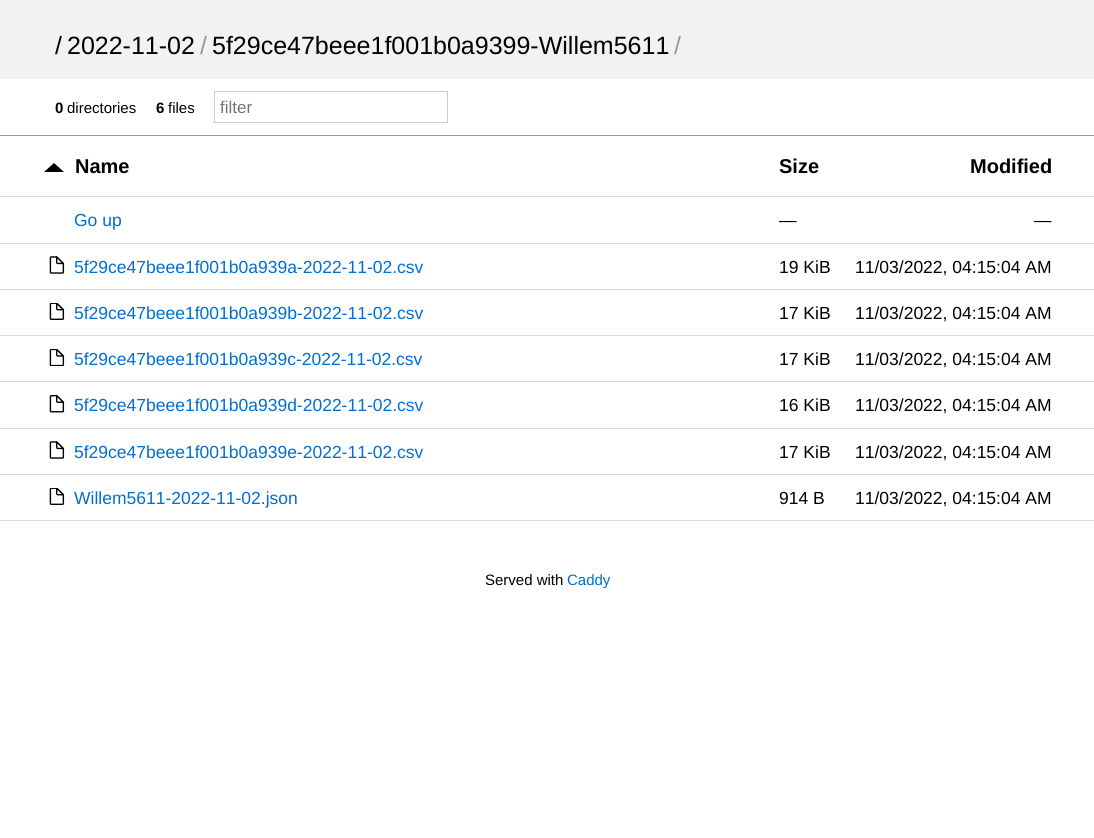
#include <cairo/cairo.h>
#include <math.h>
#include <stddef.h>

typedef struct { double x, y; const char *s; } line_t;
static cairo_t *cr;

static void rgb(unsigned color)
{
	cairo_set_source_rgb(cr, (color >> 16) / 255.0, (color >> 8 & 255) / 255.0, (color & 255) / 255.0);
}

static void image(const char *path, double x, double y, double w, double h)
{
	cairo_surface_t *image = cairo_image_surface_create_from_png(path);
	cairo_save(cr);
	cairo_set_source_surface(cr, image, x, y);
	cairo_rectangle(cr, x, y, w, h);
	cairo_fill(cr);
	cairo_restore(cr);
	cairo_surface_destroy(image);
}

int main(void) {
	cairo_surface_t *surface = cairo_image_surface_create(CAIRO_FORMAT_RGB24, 1094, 838);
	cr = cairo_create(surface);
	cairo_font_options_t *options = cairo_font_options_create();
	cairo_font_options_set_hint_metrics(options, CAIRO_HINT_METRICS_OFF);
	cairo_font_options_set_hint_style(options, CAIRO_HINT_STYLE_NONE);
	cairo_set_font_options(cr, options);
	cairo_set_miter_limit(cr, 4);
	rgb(0xffffff);
	cairo_paint(cr);
	rgb(0xf2f2f2);
	cairo_rectangle(cr, 0, 0, 1094, 79);
	cairo_fill(cr);
	rgb(0x9c9c9c);
	cairo_rectangle(cr, 0, 135, 1094, 1);
	cairo_fill(cr);
	cairo_rectangle(cr, 214.5, 91.5, 233, 31);
	rgb(0xcccccc);
	cairo_set_line_width(cr, 1);
	cairo_stroke(cr);
	rgb(0xdadada);
	cairo_rectangle(cr, 0, 196, 1094, 1);
	cairo_fill(cr);
	rgb(0x000000);
	cairo_new_path(cr);
	cairo_move_to(cr, 64, 172);
	cairo_line_to(cr, 44, 172);
	cairo_line_to(cr, 54, 163);
	cairo_line_to(cr, 59, 167.5);
	cairo_close_path(cr);
	cairo_fill(cr);
	rgb(0xdadada);
	cairo_rectangle(cr, 0, 243, 1094, 1);
	cairo_fill(cr);
	cairo_rectangle(cr, 0, 289, 1094, 1);
	cairo_fill(cr);
	image("img/1.png", 49, 256, 16, 18);
	cairo_rectangle(cr, 0, 335, 1094, 1);
	cairo_fill(cr);
	image("img/2.png", 49, 303, 16, 17);
	cairo_rectangle(cr, 0, 381, 1094, 1);
	cairo_fill(cr);
	image("img/3.png", 49, 349, 16, 17);
	cairo_rectangle(cr, 0, 428, 1094, 1);
	cairo_fill(cr);
	image("img/4.png", 49, 395, 16, 18);
	cairo_rectangle(cr, 0, 474, 1094, 1);
	cairo_fill(cr);
	image("img/1.png", 49, 441, 16, 18);
	cairo_rectangle(cr, 0, 520, 1094, 1);
	cairo_fill(cr);
	image("img/2.png", 49, 488, 16, 17);
	cairo_select_font_face(cr, "Liberation Sans", CAIRO_FONT_SLANT_NORMAL, CAIRO_FONT_WEIGHT_NORMAL);
	cairo_set_font_size(cr, 25);
	rgb(0x000000);
	cairo_move_to(cr, 55, 54);
	cairo_show_text(cr, "/");
	cairo_move_to(cr, 67, 54);
	cairo_show_text(cr, "2022-11-02");
	rgb(0x999999);
	cairo_move_to(cr, 200, 54);
	cairo_show_text(cr, "/");
	rgb(0x000000);
	cairo_move_to(cr, 212, 54);
	cairo_show_text(cr, "5f29ce47beee1f001b0a9399-Willem5611");
	rgb(0x999999);
	cairo_move_to(cr, 674, 54);
	cairo_show_text(cr, "/");
	cairo_select_font_face(cr, "Liberation Sans", CAIRO_FONT_SLANT_NORMAL, CAIRO_FONT_WEIGHT_BOLD);
	cairo_set_font_size(cr, 15);
	rgb(0x000000);
	cairo_move_to(cr, 55, 113);
	cairo_show_text(cr, "0");
	cairo_select_font_face(cr, "Liberation Sans", CAIRO_FONT_SLANT_NORMAL, CAIRO_FONT_WEIGHT_NORMAL);
	cairo_move_to(cr, 67, 113);
	cairo_show_text(cr, "directories");
	cairo_select_font_face(cr, "Liberation Sans", CAIRO_FONT_SLANT_NORMAL, CAIRO_FONT_WEIGHT_BOLD);
	cairo_move_to(cr, 156, 113);
	cairo_show_text(cr, "6");
	cairo_select_font_face(cr, "Liberation Sans", CAIRO_FONT_SLANT_NORMAL, CAIRO_FONT_WEIGHT_NORMAL);
	cairo_move_to(cr, 168, 113);
	cairo_show_text(cr, "files");
	cairo_set_font_size(cr, 17);
	rgb(0x757575);
	cairo_move_to(cr, 220, 113);
	cairo_show_text(cr, "filter");
	cairo_select_font_face(cr, "Liberation Sans", CAIRO_FONT_SLANT_NORMAL, CAIRO_FONT_WEIGHT_BOLD);
	cairo_set_font_size(cr, 20);
	rgb(0x000000);
	{
		static const line_t items[] = {
			{75, 173, "Name"},
			{779, 173, "Size"},
			{970, 173, "Modified"},
		};
		for (size_t i = 0; i < sizeof items / sizeof *items; i++) {
			cairo_move_to(cr, items[i].x, items[i].y);
			cairo_show_text(cr, items[i].s);
		}
	}
	cairo_select_font_face(cr, "Liberation Sans", CAIRO_FONT_SLANT_NORMAL, CAIRO_FONT_WEIGHT_NORMAL);
	cairo_set_font_size(cr, 17.5);
	rgb(0x006ed3);
	cairo_move_to(cr, 74, 226);
	cairo_show_text(cr, "Go up");
	rgb(0x000000);
	cairo_move_to(cr, 779, 226);
	cairo_show_text(cr, "—");
	cairo_move_to(cr, 1034, 226);
	cairo_show_text(cr, "—");
	rgb(0x006ed3);
	cairo_move_to(cr, 74, 273);
	cairo_show_text(cr, "5f29ce47beee1f001b0a939a-2022-11-02.csv");
	rgb(0x000000);
	cairo_move_to(cr, 779, 273);
	cairo_show_text(cr, "19 KiB");
	cairo_move_to(cr, 855, 273);
	cairo_show_text(cr, "11/03/2022, 04:15:04 AM");
	rgb(0x006ed3);
	cairo_move_to(cr, 74, 319);
	cairo_show_text(cr, "5f29ce47beee1f001b0a939b-2022-11-02.csv");
	rgb(0x000000);
	cairo_move_to(cr, 779, 319);
	cairo_show_text(cr, "17 KiB");
	cairo_move_to(cr, 855, 319);
	cairo_show_text(cr, "11/03/2022, 04:15:04 AM");
	rgb(0x006ed3);
	cairo_move_to(cr, 74, 365);
	cairo_show_text(cr, "5f29ce47beee1f001b0a939c-2022-11-02.csv");
	rgb(0x000000);
	cairo_move_to(cr, 779, 365);
	cairo_show_text(cr, "17 KiB");
	cairo_move_to(cr, 855, 365);
	cairo_show_text(cr, "11/03/2022, 04:15:04 AM");
	rgb(0x006ed3);
	cairo_move_to(cr, 74, 411);
	cairo_show_text(cr, "5f29ce47beee1f001b0a939d-2022-11-02.csv");
	rgb(0x000000);
	cairo_move_to(cr, 779, 411);
	cairo_show_text(cr, "16 KiB");
	cairo_move_to(cr, 855, 411);
	cairo_show_text(cr, "11/03/2022, 04:15:04 AM");
	rgb(0x006ed3);
	cairo_move_to(cr, 74, 458);
	cairo_show_text(cr, "5f29ce47beee1f001b0a939e-2022-11-02.csv");
	rgb(0x000000);
	cairo_move_to(cr, 779, 458);
	cairo_show_text(cr, "17 KiB");
	cairo_move_to(cr, 855, 458);
	cairo_show_text(cr, "11/03/2022, 04:15:04 AM");
	rgb(0x006ed3);
	cairo_move_to(cr, 74, 504);
	cairo_show_text(cr, "Willem5611-2022-11-02.json");
	rgb(0x000000);
	cairo_move_to(cr, 779, 504);
	cairo_show_text(cr, "914 B");
	cairo_move_to(cr, 855, 504);
	cairo_show_text(cr, "11/03/2022, 04:15:04 AM");
	cairo_set_font_size(cr, 15);
	cairo_move_to(cr, 485, 585);
	cairo_show_text(cr, "Served with");
	rgb(0x006ed3);
	cairo_move_to(cr, 567, 585);
	cairo_show_text(cr, "Caddy");
	cairo_surface_write_to_png(surface, "page.png");
	cairo_font_options_destroy(options);
	cairo_destroy(cr);
	cairo_surface_destroy(surface);
	return 0;
}
